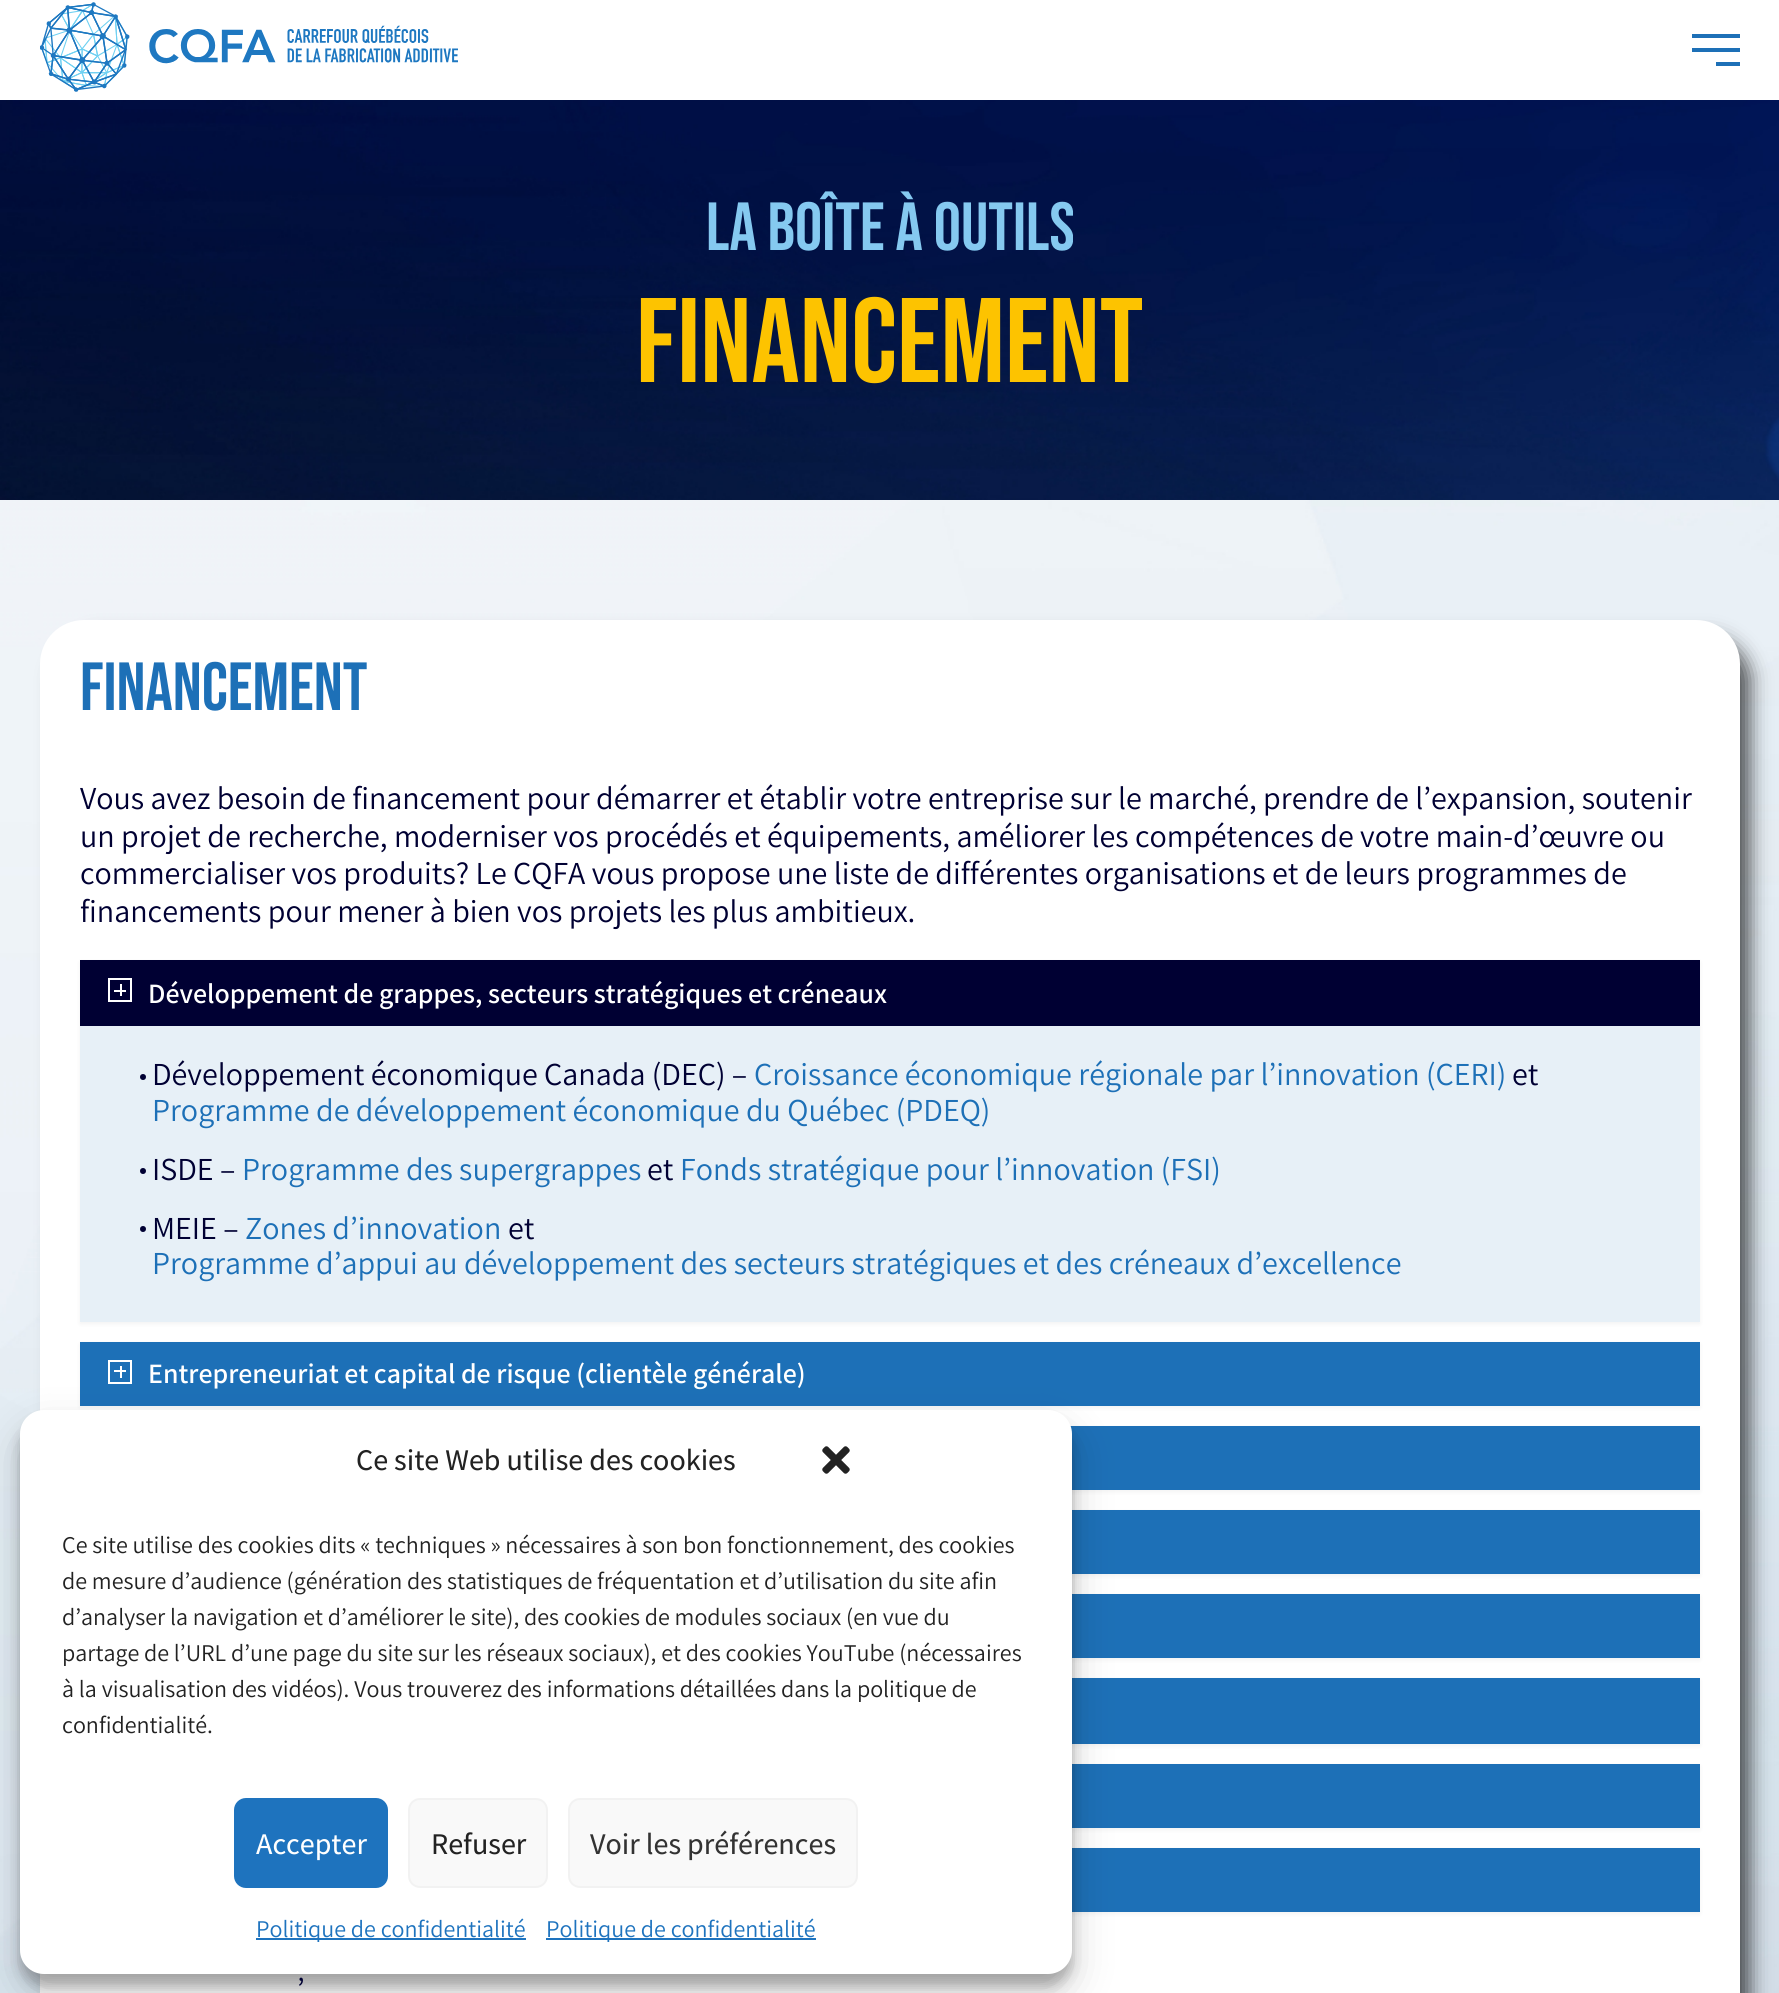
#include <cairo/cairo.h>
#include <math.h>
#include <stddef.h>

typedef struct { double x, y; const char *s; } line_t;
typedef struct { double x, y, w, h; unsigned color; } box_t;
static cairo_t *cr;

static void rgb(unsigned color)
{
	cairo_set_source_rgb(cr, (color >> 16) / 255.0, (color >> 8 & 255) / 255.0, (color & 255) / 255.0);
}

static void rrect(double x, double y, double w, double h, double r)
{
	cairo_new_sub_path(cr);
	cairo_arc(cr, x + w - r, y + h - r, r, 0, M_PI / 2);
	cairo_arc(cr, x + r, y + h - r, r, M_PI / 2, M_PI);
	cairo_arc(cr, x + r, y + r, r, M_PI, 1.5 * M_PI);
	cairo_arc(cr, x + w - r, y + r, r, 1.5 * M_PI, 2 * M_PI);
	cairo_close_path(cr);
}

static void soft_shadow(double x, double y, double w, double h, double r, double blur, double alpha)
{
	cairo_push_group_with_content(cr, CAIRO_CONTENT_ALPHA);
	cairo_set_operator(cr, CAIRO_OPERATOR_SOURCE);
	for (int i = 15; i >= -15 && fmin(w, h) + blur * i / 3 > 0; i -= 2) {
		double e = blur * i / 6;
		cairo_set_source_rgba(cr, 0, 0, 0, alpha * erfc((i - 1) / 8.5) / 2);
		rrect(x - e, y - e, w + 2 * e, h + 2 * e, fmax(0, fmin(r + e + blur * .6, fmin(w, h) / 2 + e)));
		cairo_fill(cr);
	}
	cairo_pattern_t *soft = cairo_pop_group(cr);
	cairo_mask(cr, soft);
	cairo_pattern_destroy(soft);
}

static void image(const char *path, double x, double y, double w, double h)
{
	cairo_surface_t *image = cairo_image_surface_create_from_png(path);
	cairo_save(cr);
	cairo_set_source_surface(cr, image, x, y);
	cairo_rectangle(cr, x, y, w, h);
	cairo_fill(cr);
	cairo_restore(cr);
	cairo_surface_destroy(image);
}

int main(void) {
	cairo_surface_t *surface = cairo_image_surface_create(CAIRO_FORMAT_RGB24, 1779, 1993);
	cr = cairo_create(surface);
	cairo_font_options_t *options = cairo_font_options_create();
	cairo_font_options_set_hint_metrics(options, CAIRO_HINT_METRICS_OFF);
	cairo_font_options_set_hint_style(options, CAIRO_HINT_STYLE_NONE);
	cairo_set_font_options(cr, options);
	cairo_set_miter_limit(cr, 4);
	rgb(0xffffff);
	cairo_paint(cr);
	image("img/1.png", 40, 2, 418, 90);
	{
		static const box_t items[] = {
			{1692, 34, 48, 4, 0x1d70b7},
			{1692, 48, 48, 4, 0x1d70b7},
			{1716, 62, 24, 4, 0x1d70b7},
		};
		for (size_t i = 0; i < sizeof items / sizeof *items; i++) {
			rgb(items[i].color);
			cairo_rectangle(cr, items[i].x, items[i].y, items[i].w, items[i].h);
			cairo_fill(cr);
		}
	}
	image("img/2.png", 0, 100, 1779, 400);
	image("img/3.png", 0, 500, 1779, 1493);
	rgb(0x000000);
	soft_shadow(58, 638, 1692, 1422, 40, 10, 0.66);
	rgb(0xffffff);
	rrect(40, 620, 1700, 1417, 44);
	cairo_fill(cr);
	rgb(0x000000);
	soft_shadow(80, 962, 1620, 362, 0, 2, 0.05);
	rgb(0x000033);
	cairo_rectangle(cr, 80, 960, 1620, 66);
	cairo_fill(cr);
	cairo_rectangle(cr, 109, 979, 22, 22);
	rgb(0xffffff);
	cairo_stroke(cr);
	{
		static const box_t items[] = {
			{120, 984, 2, 12, 0xffffff},
			{114, 990, 12, 2, 0xffffff},
			{80, 1026, 1620, 296, 0xe7f0f7},
		};
		for (size_t i = 0; i < sizeof items / sizeof *items; i++) {
			rgb(items[i].color);
			cairo_rectangle(cr, items[i].x, items[i].y, items[i].w, items[i].h);
			cairo_fill(cr);
		}
	}
	rgb(0x000033);
	cairo_arc(cr, 143, 1077, 3, 0, 2 * M_PI);
	cairo_fill(cr);
	cairo_arc(cr, 143, 1171, 3, 0, 2 * M_PI);
	cairo_fill(cr);
	cairo_arc(cr, 143, 1229, 3, 0, 2 * M_PI);
	cairo_fill(cr);
	rgb(0x000000);
	soft_shadow(80, 1344, 1620, 64, 0, 2, 0.05);
	rgb(0x1d70b7);
	cairo_rectangle(cr, 80, 1342, 1620, 64);
	cairo_fill(cr);
	cairo_rectangle(cr, 109, 1361, 22, 22);
	rgb(0xffffff);
	cairo_stroke(cr);
	cairo_rectangle(cr, 120, 1366, 2, 12);
	cairo_fill(cr);
	cairo_rectangle(cr, 114, 1370, 12, 2);
	cairo_fill(cr);
	rgb(0x000000);
	soft_shadow(80, 1428, 1620, 64, 0, 2, 0.05);
	rgb(0x1d70b7);
	cairo_rectangle(cr, 1070, 1426, 630, 64);
	cairo_fill(cr);
	rgb(0x000000);
	soft_shadow(80, 1512, 1620, 64, 0, 2, 0.05);
	rgb(0x1d70b7);
	cairo_rectangle(cr, 1072, 1510, 628, 64);
	cairo_fill(cr);
	rgb(0x000000);
	soft_shadow(80, 1596, 1620, 64, 0, 2, 0.05);
	rgb(0x1d70b7);
	cairo_rectangle(cr, 1072, 1594, 628, 64);
	cairo_fill(cr);
	rgb(0x000000);
	soft_shadow(80, 1680, 1620, 66, 0, 2, 0.05);
	rgb(0x1d70b7);
	cairo_rectangle(cr, 1072, 1678, 628, 66);
	cairo_fill(cr);
	rgb(0x000000);
	soft_shadow(80, 1766, 1620, 64, 0, 2, 0.05);
	rgb(0x1d70b7);
	cairo_rectangle(cr, 1072, 1764, 628, 64);
	cairo_fill(cr);
	rgb(0x000000);
	soft_shadow(80, 1850, 1620, 64, 0, 2, 0.05);
	rgb(0x1d70b7);
	cairo_rectangle(cr, 1072, 1848, 628, 64);
	cairo_fill(cr);
	rgb(0x000000);
	soft_shadow(20, 1422, 1052, 564, 24, 6, 0.23);
	soft_shadow(20, 1430, 1052, 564, 24, 20, 0.19);
	rgb(0xffffff);
	rrect(20, 1410, 1052, 564, 24);
	cairo_fill(cr);
	image("img/4.png", 822, 1446, 28, 28);
	rgb(0x1e73be);
	rrect(235, 1799, 152, 88, 11);
	cairo_fill_preserve(cr);
	cairo_stroke(cr);
	rgb(0xf9f9f9);
	rrect(409, 1799, 138, 88, 11);
	cairo_fill_preserve(cr);
	rgb(0xf2f2f2);
	cairo_stroke(cr);
	rgb(0xf9f9f9);
	rrect(569, 1799, 288, 88, 11);
	cairo_fill_preserve(cr);
	rgb(0xf2f2f2);
	cairo_stroke(cr);
	rgb(0x1e73be);
	cairo_rectangle(cr, 256, 1938, 270, 2);
	cairo_fill(cr);
	cairo_rectangle(cr, 546, 1938, 270, 2);
	cairo_fill(cr);
	cairo_select_font_face(cr, "Bebas Neue", CAIRO_FONT_SLANT_NORMAL, CAIRO_FONT_WEIGHT_NORMAL);
	cairo_set_font_size(cr, 68);
	rgb(0x85c9f0);
	cairo_move_to(cr, 706, 250);
	cairo_show_text(cr, "LA BOÎTE À OUTILS");
	cairo_set_font_size(cr, 120);
	rgb(0xfdc300);
	cairo_move_to(cr, 636, 382);
	cairo_show_text(cr, "FINANCEMENT");
	cairo_set_font_size(cr, 68);
	rgb(0x1d70b7);
	cairo_move_to(cr, 80, 710);
	cairo_show_text(cr, "FINANCEMENT");
	cairo_select_font_face(cr, "Assistant", CAIRO_FONT_SLANT_NORMAL, CAIRO_FONT_WEIGHT_NORMAL);
	cairo_set_font_size(cr, 32);
	rgb(0x000033);
	{
		static const line_t items[] = {
			{80, 809, "Vous avez besoin de financement pour démarrer et établir votre entreprise sur le marché, prendre de l’expansion, soutenir"},
			{80, 847, "un projet de recherche, moderniser vos procédés et équipements, améliorer les compétences de votre main-d’œuvre ou"},
			{80, 884, "commercialiser vos produits? Le CQFA vous propose une liste de différentes organisations et de leurs programmes de"},
			{80, 922, "financements pour mener à bien vos projets les plus ambitieux."},
		};
		for (size_t i = 0; i < sizeof items / sizeof *items; i++) {
			cairo_move_to(cr, items[i].x, items[i].y);
			cairo_show_text(cr, items[i].s);
		}
	}
	cairo_select_font_face(cr, "Assistant SemiBold", CAIRO_FONT_SLANT_NORMAL, CAIRO_FONT_WEIGHT_NORMAL);
	cairo_set_font_size(cr, 28);
	rgb(0xffffff);
	cairo_move_to(cr, 148, 1003);
	cairo_show_text(cr, "Développement de grappes, secteurs stratégiques et créneaux");
	cairo_select_font_face(cr, "Assistant", CAIRO_FONT_SLANT_NORMAL, CAIRO_FONT_WEIGHT_NORMAL);
	cairo_set_font_size(cr, 32);
	rgb(0x000033);
	cairo_move_to(cr, 152, 1085);
	cairo_show_text(cr, "Développement économique Canada (DEC) –");
	rgb(0x1d70b7);
	cairo_move_to(cr, 754, 1085);
	cairo_show_text(cr, "Croissance économique régionale par l’innovation (CERI)");
	rgb(0x000033);
	cairo_move_to(cr, 1512, 1085);
	cairo_show_text(cr, "et");
	rgb(0x1d70b7);
	cairo_move_to(cr, 152, 1121);
	cairo_show_text(cr, "Programme de développement économique du Québec (PDEQ)");
	rgb(0x000033);
	cairo_move_to(cr, 152, 1180);
	cairo_show_text(cr, "ISDE –");
	rgb(0x1d70b7);
	cairo_move_to(cr, 242, 1180);
	cairo_show_text(cr, "Programme des supergrappes");
	rgb(0x000033);
	cairo_move_to(cr, 647, 1180);
	cairo_show_text(cr, "et");
	rgb(0x1d70b7);
	cairo_move_to(cr, 680, 1180);
	cairo_show_text(cr, "Fonds stratégique pour l’innovation (FSI)");
	rgb(0x000033);
	cairo_move_to(cr, 152, 1239);
	cairo_show_text(cr, "MEIE –");
	rgb(0x1d70b7);
	cairo_move_to(cr, 245, 1239);
	cairo_show_text(cr, "Zones d’innovation");
	rgb(0x000033);
	cairo_move_to(cr, 508, 1239);
	cairo_show_text(cr, "et");
	rgb(0x1d70b7);
	cairo_move_to(cr, 152, 1274);
	cairo_show_text(cr, "Programme d’appui au développement des secteurs stratégiques et des créneaux d’excellence");
	cairo_select_font_face(cr, "Assistant SemiBold", CAIRO_FONT_SLANT_NORMAL, CAIRO_FONT_WEIGHT_NORMAL);
	cairo_set_font_size(cr, 28);
	rgb(0xffffff);
	cairo_move_to(cr, 148, 1383);
	cairo_show_text(cr, "Entrepreneuriat et capital de risque (clientèle générale)");
	cairo_select_font_face(cr, "Assistant", CAIRO_FONT_SLANT_NORMAL, CAIRO_FONT_WEIGHT_NORMAL);
	cairo_set_font_size(cr, 32);
	rgb(0x000033);
	cairo_move_to(cr, 297, 2000);
	cairo_show_text(cr, "’");
	cairo_select_font_face(cr, "Assistant Medium", CAIRO_FONT_SLANT_NORMAL, CAIRO_FONT_WEIGHT_NORMAL);
	cairo_set_font_size(cr, 30);
	rgb(0x222222);
	cairo_move_to(cr, 356, 1470);
	cairo_show_text(cr, "Ce site Web utilise des cookies");
	cairo_select_font_face(cr, "Assistant", CAIRO_FONT_SLANT_NORMAL, CAIRO_FONT_WEIGHT_NORMAL);
	cairo_set_font_size(cr, 24);
	{
		static const line_t items[] = {
			{62, 1553, "Ce site utilise des cookies dits « techniques » nécessaires à son bon fonctionnement, des cookies"},
			{62, 1589, "de mesure d’audience (génération des statistiques de fréquentation et d’utilisation du site afin"},
			{62, 1625, "d’analyser la navigation et d’améliorer le site), des cookies de modules sociaux (en vue du"},
			{62, 1661, "partage de l’URL d’une page du site sur les réseaux sociaux), et des cookies YouTube (nécessaires"},
			{62, 1697, "à la visualisation des vidéos). Vous trouverez des informations détaillées dans la politique de"},
			{62, 1733, "confidentialité."},
		};
		for (size_t i = 0; i < sizeof items / sizeof *items; i++) {
			cairo_move_to(cr, items[i].x, items[i].y);
			cairo_show_text(cr, items[i].s);
		}
	}
	cairo_select_font_face(cr, "Assistant Medium", CAIRO_FONT_SLANT_NORMAL, CAIRO_FONT_WEIGHT_NORMAL);
	cairo_set_font_size(cr, 30);
	rgb(0xffffff);
	cairo_move_to(cr, 256, 1854);
	cairo_show_text(cr, "Accepter");
	rgb(0x222222);
	cairo_move_to(cr, 431, 1854);
	cairo_show_text(cr, "Refuser");
	rgb(0x333333);
	cairo_move_to(cr, 590, 1854);
	cairo_show_text(cr, "Voir les préférences");
	cairo_select_font_face(cr, "Assistant", CAIRO_FONT_SLANT_NORMAL, CAIRO_FONT_WEIGHT_NORMAL);
	cairo_set_font_size(cr, 24);
	rgb(0x1e73be);
	cairo_move_to(cr, 256, 1937);
	cairo_show_text(cr, "Politique de confidentialité");
	cairo_move_to(cr, 546, 1937);
	cairo_show_text(cr, "Politique de confidentialité");
	cairo_surface_write_to_png(surface, "page.png");
	cairo_font_options_destroy(options);
	cairo_destroy(cr);
	cairo_surface_destroy(surface);
	return 0;
}
